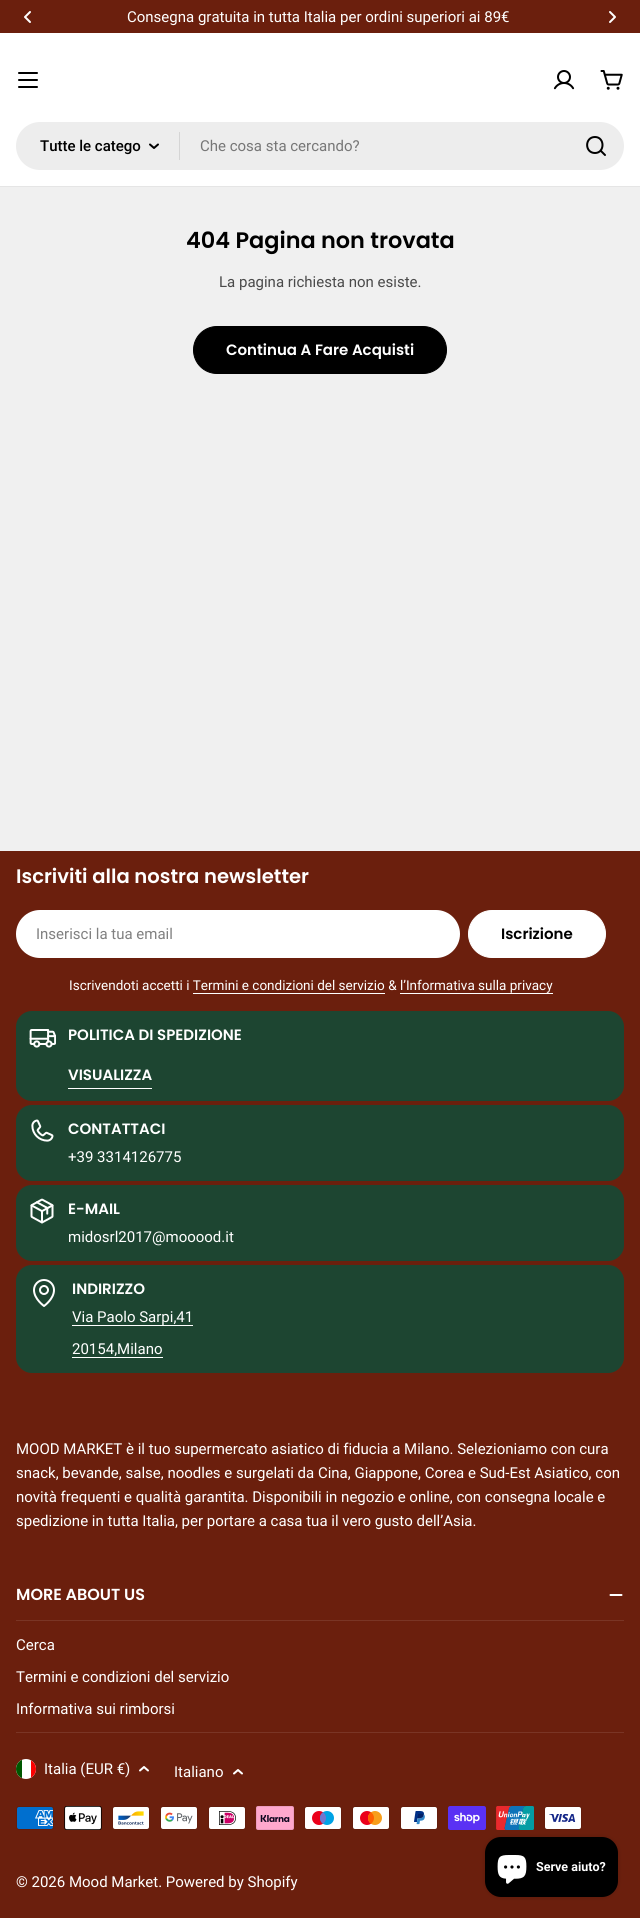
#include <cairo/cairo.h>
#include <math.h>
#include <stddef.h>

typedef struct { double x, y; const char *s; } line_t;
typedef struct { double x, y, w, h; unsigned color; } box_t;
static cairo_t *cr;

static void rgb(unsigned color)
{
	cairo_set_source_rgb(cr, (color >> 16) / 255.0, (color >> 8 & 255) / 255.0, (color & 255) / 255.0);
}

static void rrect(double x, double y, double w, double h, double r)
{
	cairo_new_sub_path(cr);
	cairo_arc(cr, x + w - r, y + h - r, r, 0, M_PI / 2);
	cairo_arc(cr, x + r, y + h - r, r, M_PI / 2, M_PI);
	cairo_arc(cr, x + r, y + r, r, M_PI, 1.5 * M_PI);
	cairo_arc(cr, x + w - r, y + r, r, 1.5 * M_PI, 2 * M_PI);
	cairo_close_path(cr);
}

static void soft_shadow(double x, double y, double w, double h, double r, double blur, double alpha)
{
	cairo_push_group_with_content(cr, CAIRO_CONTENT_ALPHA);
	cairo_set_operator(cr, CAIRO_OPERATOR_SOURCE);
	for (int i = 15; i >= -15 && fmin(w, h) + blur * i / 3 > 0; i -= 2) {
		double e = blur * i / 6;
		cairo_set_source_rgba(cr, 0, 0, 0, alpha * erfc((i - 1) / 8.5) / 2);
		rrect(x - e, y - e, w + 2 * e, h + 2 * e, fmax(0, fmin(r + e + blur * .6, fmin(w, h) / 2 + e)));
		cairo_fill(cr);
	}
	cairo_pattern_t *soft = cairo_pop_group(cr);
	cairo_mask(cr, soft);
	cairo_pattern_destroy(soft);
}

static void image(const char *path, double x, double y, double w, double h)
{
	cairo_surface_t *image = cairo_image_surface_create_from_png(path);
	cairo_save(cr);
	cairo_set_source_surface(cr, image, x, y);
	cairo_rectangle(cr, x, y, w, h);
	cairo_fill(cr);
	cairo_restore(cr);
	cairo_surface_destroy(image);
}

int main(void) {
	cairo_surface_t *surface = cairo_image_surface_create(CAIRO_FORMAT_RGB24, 640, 1918);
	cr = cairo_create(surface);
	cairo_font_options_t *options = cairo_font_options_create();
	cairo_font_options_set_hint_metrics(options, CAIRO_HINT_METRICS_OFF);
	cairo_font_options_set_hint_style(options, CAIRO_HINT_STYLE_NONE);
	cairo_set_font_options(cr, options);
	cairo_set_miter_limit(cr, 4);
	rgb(0xf0f0f0);
	cairo_paint(cr);
	rgb(0x6b1f0d);
	cairo_rectangle(cr, 0, 0, 640, 33);
	cairo_fill(cr);
	cairo_new_path(cr);
	cairo_move_to(cr, 30, 22);
	cairo_line_to(cr, 25, 17);
	cairo_line_to(cr, 30, 12);
	rgb(0xffffff);
	cairo_set_line_cap(cr, CAIRO_LINE_CAP_ROUND);
	cairo_set_line_join(cr, CAIRO_LINE_JOIN_ROUND);
	cairo_stroke(cr);
	cairo_new_path(cr);
	cairo_move_to(cr, 610, 12);
	cairo_line_to(cr, 615, 17);
	cairo_line_to(cr, 610, 22);
	cairo_stroke(cr);
	cairo_rectangle(cr, 0, 33, 640, 153);
	cairo_fill(cr);
	rgb(0x000000);
	rrect(18, 79, 20, 2, 1);
	cairo_fill(cr);
	rrect(18, 72, 20, 2, 1);
	cairo_fill(cr);
	rrect(18, 86, 20, 2, 1);
	cairo_fill(cr);
	image("img/1.png", 553, 70, 22, 20);
	image("img/2.png", 600, 70, 23, 20);
	rgb(0xededed);
	rrect(16, 122, 608, 48, 24);
	cairo_fill(cr);
	cairo_new_path(cr);
	cairo_move_to(cr, 158, 144.5);
	cairo_line_to(cr, 154, 148);
	cairo_line_to(cr, 150, 144.5);
	rgb(0x000000);
	cairo_stroke(cr);
	rgb(0xd5d5d5);
	cairo_rectangle(cr, 179, 132, 1, 28);
	cairo_fill(cr);
	cairo_new_path(cr);
	cairo_move_to(cr, 595, 153);
	cairo_curve_to(cr, 605, 153, 605, 137, 595, 137);
	cairo_curve_to(cr, 584.5, 137, 584.5, 153, 595, 153);
	cairo_close_path(cr);
	cairo_move_to(cr, 600.5, 150.5);
	cairo_line_to(cr, 605, 155);
	rgb(0x000000);
	cairo_stroke(cr);
	rgb(0xe5e5e5);
	cairo_rectangle(cr, 0, 186, 640, 1);
	cairo_fill(cr);
	rgb(0x000000);
	rrect(193.5, 326.5, 253, 47, 23.5);
	cairo_fill_preserve(cr);
	cairo_set_line_width(cr, 1);
	cairo_set_line_cap(cr, CAIRO_LINE_CAP_BUTT);
	cairo_set_line_join(cr, CAIRO_LINE_JOIN_MITER);
	cairo_stroke(cr);
	rgb(0x6b1f0d);
	cairo_rectangle(cr, 0, 851, 640, 1067);
	cairo_fill(cr);
	rgb(0xffffff);
	rrect(16, 910, 444, 48, 24);
	cairo_fill(cr);
	rrect(468.5, 910.5, 137, 47, 23.5);
	cairo_fill_preserve(cr);
	cairo_stroke(cr);
	cairo_rectangle(cr, 193, 993, 192, 1);
	cairo_fill(cr);
	cairo_rectangle(cr, 400, 993, 153, 1);
	cairo_fill(cr);
	rgb(0x1d4531);
	rrect(16, 1011, 608, 90, 16);
	cairo_fill(cr);
	image("img/3.png", 29, 1029, 27, 19);
	rgb(0xffffff);
	cairo_rectangle(cr, 68, 1088, 84, 1);
	cairo_fill(cr);
	rgb(0x1d4531);
	rrect(16, 1105, 608, 76, 16);
	cairo_fill(cr);
	image("img/4.png", 31, 1119, 23, 23);
	rrect(16, 1185, 608, 76, 16);
	cairo_fill(cr);
	image("img/5.png", 30, 1198, 24, 26);
	rrect(16, 1265, 608, 108, 16);
	cairo_fill(cr);
	image("img/6.png", 33, 1279, 22, 28);
	{
		static const box_t items[] = {
			{72, 1325, 121, 1, 0xffffff},
			{72, 1357, 91, 1, 0xffffff},
			{16, 1620, 608, 1, 0x7a3525},
		};
		for (size_t i = 0; i < sizeof items / sizeof *items; i++) {
			rgb(items[i].color);
			cairo_rectangle(cr, items[i].x, items[i].y, items[i].w, items[i].h);
			cairo_fill(cr);
		}
	}
	cairo_new_path(cr);
	cairo_move_to(cr, 610.5, 1595);
	cairo_line_to(cr, 621.5, 1595);
	cairo_move_to(cr, 610.5, 1595);
	cairo_line_to(cr, 621.5, 1595);
	rgb(0xffffff);
	cairo_set_line_width(cr, 2);
	cairo_set_line_cap(cr, CAIRO_LINE_CAP_ROUND);
	cairo_set_line_join(cr, CAIRO_LINE_JOIN_ROUND);
	cairo_stroke(cr);
	rgb(0x7a3525);
	cairo_rectangle(cr, 16, 1732, 608, 1);
	cairo_fill(cr);
	rgb(0xffffff);
	cairo_arc(cr, 26, 1769, 10, 0, 2 * M_PI);
	cairo_fill(cr);
	cairo_save(cr);
	rrect(16, 1759, 20, 20, 10);
	cairo_clip(cr);
	rgb(0x005700);
	cairo_rectangle(cr, 16, 1759, 6, 20);
	cairo_fill(cr);
	rgb(0xfc0000);
	cairo_rectangle(cr, 31, 1759, 5, 20);
	cairo_fill(cr);
	cairo_restore(cr);
	cairo_new_path(cr);
	cairo_move_to(cr, 140, 1770.5);
	cairo_line_to(cr, 144, 1767);
	cairo_line_to(cr, 148, 1770.5);
	cairo_stroke(cr);
	cairo_new_path(cr);
	cairo_move_to(cr, 234, 1773.5);
	cairo_line_to(cr, 238, 1770);
	cairo_line_to(cr, 242, 1773.5);
	cairo_stroke(cr);
	image("img/7.png", 16, 1806, 38, 24);
	image("img/8.png", 64, 1806, 38, 24);
	image("img/9.png", 112, 1806, 38, 24);
	image("img/10.png", 160, 1806, 38, 24);
	image("img/11.png", 208, 1806, 38, 24);
	image("img/12.png", 256, 1806, 38, 24);
	image("img/13.png", 304, 1806, 38, 24);
	image("img/14.png", 352, 1806, 38, 24);
	image("img/15.png", 400, 1806, 38, 24);
	image("img/16.png", 448, 1806, 38, 24);
	image("img/17.png", 496, 1806, 38, 24);
	image("img/18.png", 544, 1806, 38, 24);
	rgb(0x000000);
	soft_shadow(485, 1837, 133, 60, 16, 2.5, 0.15);
	rgb(0x000000);
	rrect(485, 1837, 133, 60, 16);
	cairo_fill(cr);
	image("img/19.png", 497, 1855, 30, 29);
	cairo_select_font_face(cr, "Roboto", CAIRO_FONT_SLANT_NORMAL, CAIRO_FONT_WEIGHT_NORMAL);
	cairo_set_font_size(cr, 15);
	rgb(0xffffff);
	cairo_move_to(cr, 127, 22);
	cairo_show_text(cr, "Consegna gratuita in tutta Italia per ordini superiori ai 89€");
	cairo_select_font_face(cr, "Roboto Medium", CAIRO_FONT_SLANT_NORMAL, CAIRO_FONT_WEIGHT_NORMAL);
	rgb(0x000000);
	cairo_move_to(cr, 40, 151);
	cairo_show_text(cr, "Tutte le catego");
	cairo_select_font_face(cr, "Roboto", CAIRO_FONT_SLANT_NORMAL, CAIRO_FONT_WEIGHT_NORMAL);
	rgb(0x777777);
	cairo_move_to(cr, 200, 151);
	cairo_show_text(cr, "Che cosa sta cercando?");
	cairo_select_font_face(cr, "Poppins SemiBold", CAIRO_FONT_SLANT_NORMAL, CAIRO_FONT_WEIGHT_NORMAL);
	cairo_set_font_size(cr, 22.4);
	rgb(0x000000);
	cairo_move_to(cr, 186, 248);
	cairo_show_text(cr, "404 Pagina non trovata");
	cairo_select_font_face(cr, "Roboto", CAIRO_FONT_SLANT_NORMAL, CAIRO_FONT_WEIGHT_NORMAL);
	cairo_set_font_size(cr, 15);
	rgb(0x4a4a4a);
	cairo_move_to(cr, 219, 287);
	cairo_show_text(cr, "La pagina richiesta non esiste.");
	cairo_select_font_face(cr, "Poppins SemiBold", CAIRO_FONT_SLANT_NORMAL, CAIRO_FONT_WEIGHT_NORMAL);
	rgb(0xffffff);
	cairo_move_to(cr, 226, 355);
	cairo_show_text(cr, "Continua A Fare Acquisti");
	cairo_set_font_size(cr, 19.6);
	cairo_move_to(cr, 16, 883);
	cairo_show_text(cr, "Iscriviti alla nostra newsletter");
	cairo_select_font_face(cr, "Roboto", CAIRO_FONT_SLANT_NORMAL, CAIRO_FONT_WEIGHT_NORMAL);
	cairo_set_font_size(cr, 15);
	rgb(0x808080);
	cairo_move_to(cr, 36, 939);
	cairo_show_text(cr, "Inserisci la tua email");
	cairo_select_font_face(cr, "Poppins SemiBold", CAIRO_FONT_SLANT_NORMAL, CAIRO_FONT_WEIGHT_NORMAL);
	rgb(0x000000);
	cairo_move_to(cr, 501, 939);
	cairo_show_text(cr, "Iscrizione");
	cairo_select_font_face(cr, "Roboto", CAIRO_FONT_SLANT_NORMAL, CAIRO_FONT_WEIGHT_NORMAL);
	cairo_set_font_size(cr, 13.5);
	rgb(0xffffff);
	cairo_move_to(cr, 69, 990);
	cairo_show_text(cr, "Iscrivendoti accetti i Termini e condizioni del servizio & l’Informativa sulla privacy");
	cairo_select_font_face(cr, "Poppins SemiBold", CAIRO_FONT_SLANT_NORMAL, CAIRO_FONT_WEIGHT_NORMAL);
	cairo_set_font_size(cr, 15);
	{
		static const line_t items[] = {
			{68, 1040, "POLITICA DI SPEDIZIONE"},
			{68, 1080, "VISUALIZZA"},
			{68, 1134, "CONTATTACI"},
		};
		for (size_t i = 0; i < sizeof items / sizeof *items; i++) {
			cairo_move_to(cr, items[i].x, items[i].y);
			cairo_show_text(cr, items[i].s);
		}
	}
	cairo_select_font_face(cr, "Roboto", CAIRO_FONT_SLANT_NORMAL, CAIRO_FONT_WEIGHT_NORMAL);
	cairo_move_to(cr, 68, 1162);
	cairo_show_text(cr, "+39 3314126775");
	cairo_select_font_face(cr, "Poppins SemiBold", CAIRO_FONT_SLANT_NORMAL, CAIRO_FONT_WEIGHT_NORMAL);
	cairo_move_to(cr, 68, 1214);
	cairo_show_text(cr, "E-MAIL");
	cairo_select_font_face(cr, "Roboto", CAIRO_FONT_SLANT_NORMAL, CAIRO_FONT_WEIGHT_NORMAL);
	cairo_move_to(cr, 68, 1242);
	cairo_show_text(cr, "midosrl2017@mooood.it");
	cairo_select_font_face(cr, "Poppins SemiBold", CAIRO_FONT_SLANT_NORMAL, CAIRO_FONT_WEIGHT_NORMAL);
	cairo_move_to(cr, 72, 1294);
	cairo_show_text(cr, "INDIRIZZO");
	cairo_select_font_face(cr, "Roboto", CAIRO_FONT_SLANT_NORMAL, CAIRO_FONT_WEIGHT_NORMAL);
	{
		static const line_t items[] = {
			{72, 1322, "Via Paolo Sarpi,41"},
			{72, 1354, "20154,Milano"},
			{16, 1454, "MOOD MARKET è il tuo supermercato asiatico di fiducia a Milano. Selezioniamo con cura"},
			{16, 1478, "snack, bevande, salse, noodles e surgelati da Cina, Giappone, Corea e Sud-Est Asiatico, con"},
			{16, 1502, "novità frequenti e qualità garantita. Disponibili in negozio e online, con consegna locale e"},
			{16, 1526, "spedizione in tutta Italia, per portare a casa tua il vero gusto dell’Asia."},
		};
		for (size_t i = 0; i < sizeof items / sizeof *items; i++) {
			cairo_move_to(cr, items[i].x, items[i].y);
			cairo_show_text(cr, items[i].s);
		}
	}
	cairo_select_font_face(cr, "Poppins SemiBold", CAIRO_FONT_SLANT_NORMAL, CAIRO_FONT_WEIGHT_NORMAL);
	cairo_set_font_size(cr, 16);
	cairo_move_to(cr, 16, 1600);
	cairo_show_text(cr, "MORE ABOUT US");
	cairo_select_font_face(cr, "Roboto", CAIRO_FONT_SLANT_NORMAL, CAIRO_FONT_WEIGHT_NORMAL);
	cairo_set_font_size(cr, 15);
	{
		static const line_t items[] = {
			{16, 1650, "Cerca"},
			{16, 1682, "Termini e condizioni del servizio"},
			{16, 1714, "Informativa sui rimborsi"},
			{44, 1774, "Italia (EUR €)"},
			{174, 1777, "Italiano"},
			{16, 1887, "© 2026 Mood Market. Powered by Shopify"},
		};
		for (size_t i = 0; i < sizeof items / sizeof *items; i++) {
			cairo_move_to(cr, items[i].x, items[i].y);
			cairo_show_text(cr, items[i].s);
		}
	}
	cairo_select_font_face(cr, "Roboto", CAIRO_FONT_SLANT_NORMAL, CAIRO_FONT_WEIGHT_BOLD);
	cairo_set_font_size(cr, 12.5);
	cairo_move_to(cr, 536, 1871);
	cairo_show_text(cr, "Serve aiuto?");
	cairo_surface_write_to_png(surface, "page.png");
	cairo_font_options_destroy(options);
	cairo_destroy(cr);
	cairo_surface_destroy(surface);
	return 0;
}
